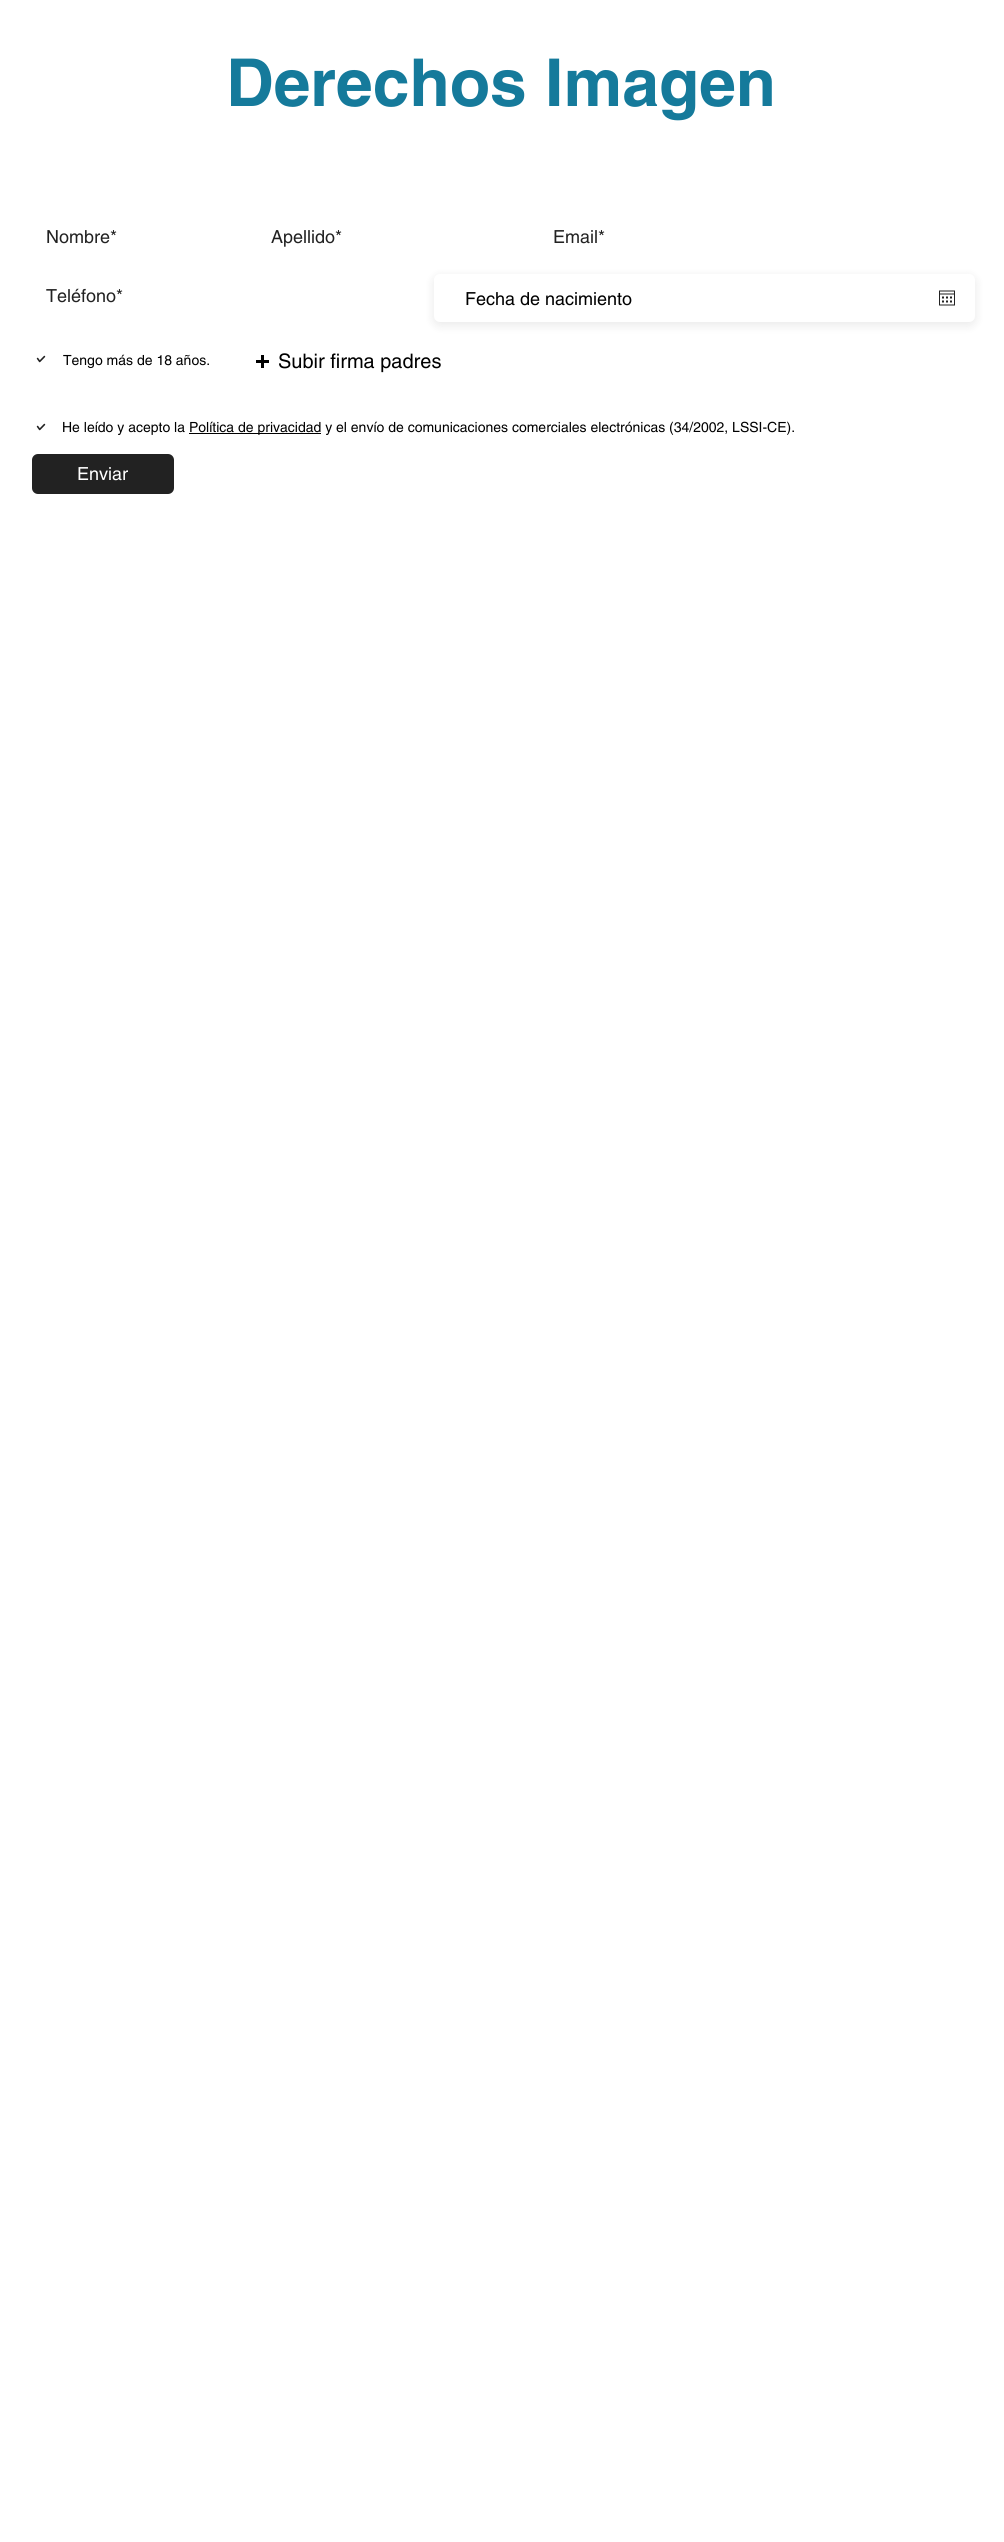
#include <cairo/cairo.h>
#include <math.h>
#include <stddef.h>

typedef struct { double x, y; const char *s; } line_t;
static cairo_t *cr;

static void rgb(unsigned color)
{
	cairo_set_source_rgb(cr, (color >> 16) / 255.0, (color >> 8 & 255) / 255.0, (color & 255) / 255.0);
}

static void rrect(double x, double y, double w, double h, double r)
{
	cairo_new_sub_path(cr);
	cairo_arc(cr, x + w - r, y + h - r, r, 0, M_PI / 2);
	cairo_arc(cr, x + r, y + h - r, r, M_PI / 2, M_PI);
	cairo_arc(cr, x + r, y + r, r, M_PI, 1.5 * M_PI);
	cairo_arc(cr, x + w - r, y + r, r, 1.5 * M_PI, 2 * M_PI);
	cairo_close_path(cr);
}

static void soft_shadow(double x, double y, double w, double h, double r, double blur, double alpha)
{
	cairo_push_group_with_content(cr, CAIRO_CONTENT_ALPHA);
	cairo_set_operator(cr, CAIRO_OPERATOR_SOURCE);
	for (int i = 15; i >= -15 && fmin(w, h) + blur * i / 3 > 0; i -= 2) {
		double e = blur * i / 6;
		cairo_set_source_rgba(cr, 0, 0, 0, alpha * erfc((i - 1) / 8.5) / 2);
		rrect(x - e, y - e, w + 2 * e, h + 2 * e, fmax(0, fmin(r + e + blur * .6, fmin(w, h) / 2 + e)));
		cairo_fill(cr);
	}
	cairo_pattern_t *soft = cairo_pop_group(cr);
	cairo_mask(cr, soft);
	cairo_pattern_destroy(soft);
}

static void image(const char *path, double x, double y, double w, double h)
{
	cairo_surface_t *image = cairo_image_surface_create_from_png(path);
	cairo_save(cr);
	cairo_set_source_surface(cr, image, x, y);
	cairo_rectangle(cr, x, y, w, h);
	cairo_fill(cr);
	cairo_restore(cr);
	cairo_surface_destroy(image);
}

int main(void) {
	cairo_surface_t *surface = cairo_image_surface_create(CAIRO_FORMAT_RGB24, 1004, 2542);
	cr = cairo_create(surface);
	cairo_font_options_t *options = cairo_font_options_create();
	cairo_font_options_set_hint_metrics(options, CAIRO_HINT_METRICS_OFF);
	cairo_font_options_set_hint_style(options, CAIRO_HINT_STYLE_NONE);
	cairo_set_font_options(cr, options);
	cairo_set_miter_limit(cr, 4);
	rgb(0xffffff);
	cairo_paint(cr);
	rgb(0x000000);
	soft_shadow(433, 276, 543, 50, 7, 5, 0.08);
	rgb(0xffffff);
	rrect(434, 274, 541, 48, 6);
	cairo_fill(cr);
	image("img/1.png", 939, 290, 16, 16);
	image("img/2.png", 36, 355, 10, 8);
	rgb(0x000000);
	cairo_rectangle(cr, 261, 355, 3, 13);
	cairo_fill(cr);
	cairo_rectangle(cr, 256, 360, 13, 3);
	cairo_fill(cr);
	image("img/2.png", 36, 423, 10, 8);
	cairo_rectangle(cr, 189, 433, 132, 1);
	cairo_fill(cr);
	rgb(0x222222);
	rrect(32, 454, 142, 40, 6);
	cairo_fill(cr);
	cairo_select_font_face(cr, "helvetica", CAIRO_FONT_SLANT_NORMAL, CAIRO_FONT_WEIGHT_BOLD);
	cairo_set_font_size(cr, 66);
	rgb(0x157a9b);
	cairo_move_to(cr, 226, 106);
	cairo_show_text(cr, "Derechos Imagen");
	cairo_select_font_face(cr, "helvetica", CAIRO_FONT_SLANT_NORMAL, CAIRO_FONT_WEIGHT_NORMAL);
	cairo_set_font_size(cr, 18);
	rgb(0x222222);
	{
		static const line_t items[] = {
			{46, 243, "Nombre*"},
			{271, 243, "Apellido*"},
			{553, 243, "Email*"},
			{46, 302, "Teléfono*"},
		};
		for (size_t i = 0; i < sizeof items / sizeof *items; i++) {
			cairo_move_to(cr, items[i].x, items[i].y);
			cairo_show_text(cr, items[i].s);
		}
	}
	rgb(0x000000);
	cairo_move_to(cr, 465, 305);
	cairo_show_text(cr, "Fecha de nacimiento");
	cairo_set_font_size(cr, 14);
	cairo_move_to(cr, 63, 365);
	cairo_show_text(cr, "Tengo más de 18 años.");
	cairo_set_font_size(cr, 20);
	cairo_move_to(cr, 278, 368);
	cairo_show_text(cr, "Subir firma padres");
	cairo_set_font_size(cr, 14);
	cairo_move_to(cr, 62, 432);
	cairo_show_text(cr, "He leído y acepto la");
	cairo_move_to(cr, 189, 432);
	cairo_show_text(cr, "Política de privacidad y el envío de comunicaciones comerciales electrónicas (34/2002, LSSI-CE).");
	cairo_set_font_size(cr, 18);
	rgb(0xffffff);
	cairo_move_to(cr, 77, 480);
	cairo_show_text(cr, "Enviar");
	cairo_surface_write_to_png(surface, "page.png");
	cairo_font_options_destroy(options);
	cairo_destroy(cr);
	cairo_surface_destroy(surface);
	return 0;
}
